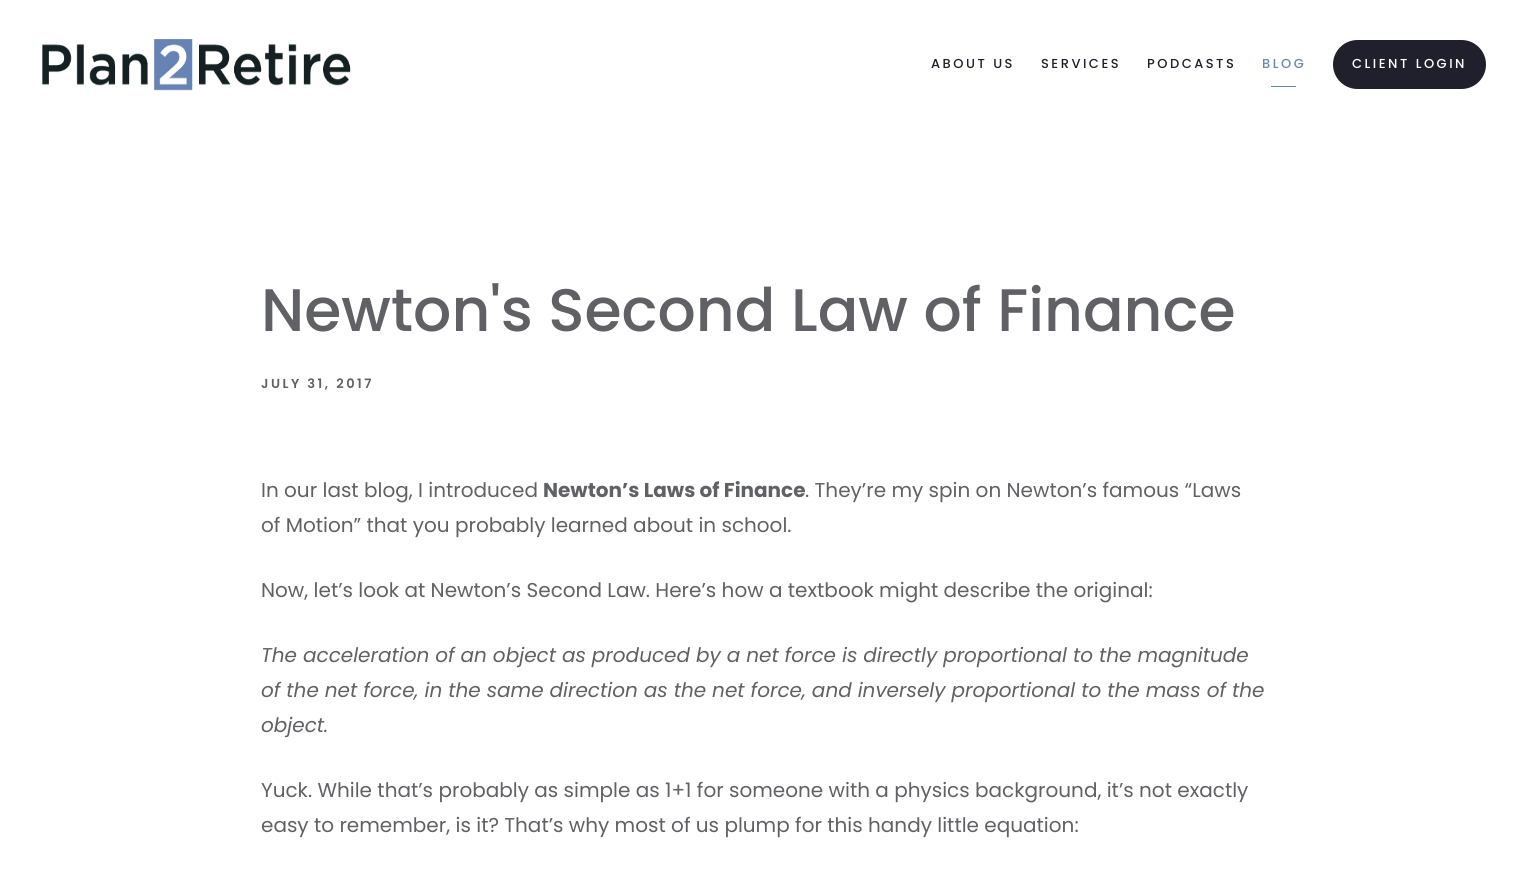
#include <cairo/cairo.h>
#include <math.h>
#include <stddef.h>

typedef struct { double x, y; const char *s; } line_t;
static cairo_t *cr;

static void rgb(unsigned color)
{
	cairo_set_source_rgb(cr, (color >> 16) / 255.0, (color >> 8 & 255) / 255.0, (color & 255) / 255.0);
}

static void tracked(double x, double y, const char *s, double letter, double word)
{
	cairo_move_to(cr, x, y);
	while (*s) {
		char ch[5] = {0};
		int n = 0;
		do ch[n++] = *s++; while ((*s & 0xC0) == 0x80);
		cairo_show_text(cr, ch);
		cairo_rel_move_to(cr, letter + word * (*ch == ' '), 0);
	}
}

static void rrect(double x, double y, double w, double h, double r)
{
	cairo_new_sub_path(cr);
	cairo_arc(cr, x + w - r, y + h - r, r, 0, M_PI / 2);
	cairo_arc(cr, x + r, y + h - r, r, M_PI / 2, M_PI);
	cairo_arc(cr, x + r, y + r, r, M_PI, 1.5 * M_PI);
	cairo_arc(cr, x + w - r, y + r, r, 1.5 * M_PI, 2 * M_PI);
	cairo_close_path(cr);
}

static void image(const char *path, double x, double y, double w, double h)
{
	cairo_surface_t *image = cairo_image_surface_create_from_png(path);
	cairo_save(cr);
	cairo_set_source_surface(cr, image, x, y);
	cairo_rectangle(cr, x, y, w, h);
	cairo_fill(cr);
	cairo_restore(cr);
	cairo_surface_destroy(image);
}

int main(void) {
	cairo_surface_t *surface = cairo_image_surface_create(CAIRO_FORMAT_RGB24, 1526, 891);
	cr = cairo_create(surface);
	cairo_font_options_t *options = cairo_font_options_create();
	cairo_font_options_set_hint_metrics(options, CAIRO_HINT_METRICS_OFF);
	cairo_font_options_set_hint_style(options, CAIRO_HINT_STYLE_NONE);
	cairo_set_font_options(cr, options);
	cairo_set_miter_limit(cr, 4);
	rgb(0xffffff);
	cairo_paint(cr);
	image("img/1.png", 42, 39, 309, 52);
	rgb(0x6987b3);
	cairo_rectangle(cr, 1271, 86, 25, 1);
	cairo_fill(cr);
	rgb(0x1f202b);
	rrect(1333, 40, 153, 49, 24.5);
	cairo_fill(cr);
	cairo_select_font_face(cr, "Poppins Medium", CAIRO_FONT_SLANT_NORMAL, CAIRO_FONT_WEIGHT_NORMAL);
	cairo_set_font_size(cr, 13);
	{
		static const line_t items[] = {
			{931, 68, "ABOUT US"},
			{1041, 68, "SERVICES"},
			{1147, 68, "PODCASTS"},
		};
		for (size_t i = 0; i < sizeof items / sizeof *items; i++) {
			tracked(items[i].x, items[i].y, items[i].s, 2.5, 0);
		}
	}
	rgb(0x6987b3);
	tracked(1262, 68, "BLOG", 2.5, 0);
	rgb(0xffffff);
	tracked(1352, 68, "CLIENT LOGIN", 2.5, 0);
	cairo_set_font_size(cr, 60);
	rgb(0x606164);
	cairo_move_to(cr, 261, 331);
	cairo_show_text(cr, "Newton's Second Law of Finance");
	cairo_select_font_face(cr, "Poppins SemiBold", CAIRO_FONT_SLANT_NORMAL, CAIRO_FONT_WEIGHT_NORMAL);
	cairo_set_font_size(cr, 13);
	tracked(261, 388, "JULY 31, 2017", 2.5, 0);
	cairo_select_font_face(cr, "Poppins", CAIRO_FONT_SLANT_NORMAL, CAIRO_FONT_WEIGHT_NORMAL);
	cairo_set_font_size(cr, 20);
	cairo_move_to(cr, 261, 497);
	cairo_show_text(cr, "In our last blog, I introduced");
	cairo_select_font_face(cr, "Poppins", CAIRO_FONT_SLANT_NORMAL, CAIRO_FONT_WEIGHT_BOLD);
	cairo_move_to(cr, 543, 497);
	cairo_show_text(cr, "Newton’s Laws of Finance");
	cairo_select_font_face(cr, "Poppins", CAIRO_FONT_SLANT_NORMAL, CAIRO_FONT_WEIGHT_NORMAL);
	{
		static const line_t items[] = {
			{805, 497, ". They’re my spin on Newton’s famous “Laws"},
			{261, 532, "of Motion” that you probably learned about in school."},
			{261, 597, "Now, let’s look at Newton’s Second Law. Here’s how a textbook might describe the original:"},
		};
		for (size_t i = 0; i < sizeof items / sizeof *items; i++) {
			cairo_move_to(cr, items[i].x, items[i].y);
			cairo_show_text(cr, items[i].s);
		}
	}
	cairo_select_font_face(cr, "Poppins", CAIRO_FONT_SLANT_ITALIC, CAIRO_FONT_WEIGHT_NORMAL);
	{
		static const line_t items[] = {
			{261, 662, "The acceleration of an object as produced by a net force is directly proportional to the magnitude"},
			{261, 697, "of the net force, in the same direction as the net force, and inversely proportional to the mass of the"},
			{261, 732, "object."},
		};
		for (size_t i = 0; i < sizeof items / sizeof *items; i++) {
			cairo_move_to(cr, items[i].x, items[i].y);
			cairo_show_text(cr, items[i].s);
		}
	}
	cairo_select_font_face(cr, "Poppins", CAIRO_FONT_SLANT_NORMAL, CAIRO_FONT_WEIGHT_NORMAL);
	cairo_move_to(cr, 261, 797);
	cairo_show_text(cr, "Yuck. While that’s probably as simple as 1+1 for someone with a physics background, it’s not exactly");
	cairo_move_to(cr, 261, 832);
	cairo_show_text(cr, "easy to remember, is it? That’s why most of us plump for this handy little equation:");
	cairo_surface_write_to_png(surface, "page.png");
	cairo_font_options_destroy(options);
	cairo_destroy(cr);
	cairo_surface_destroy(surface);
	return 0;
}
